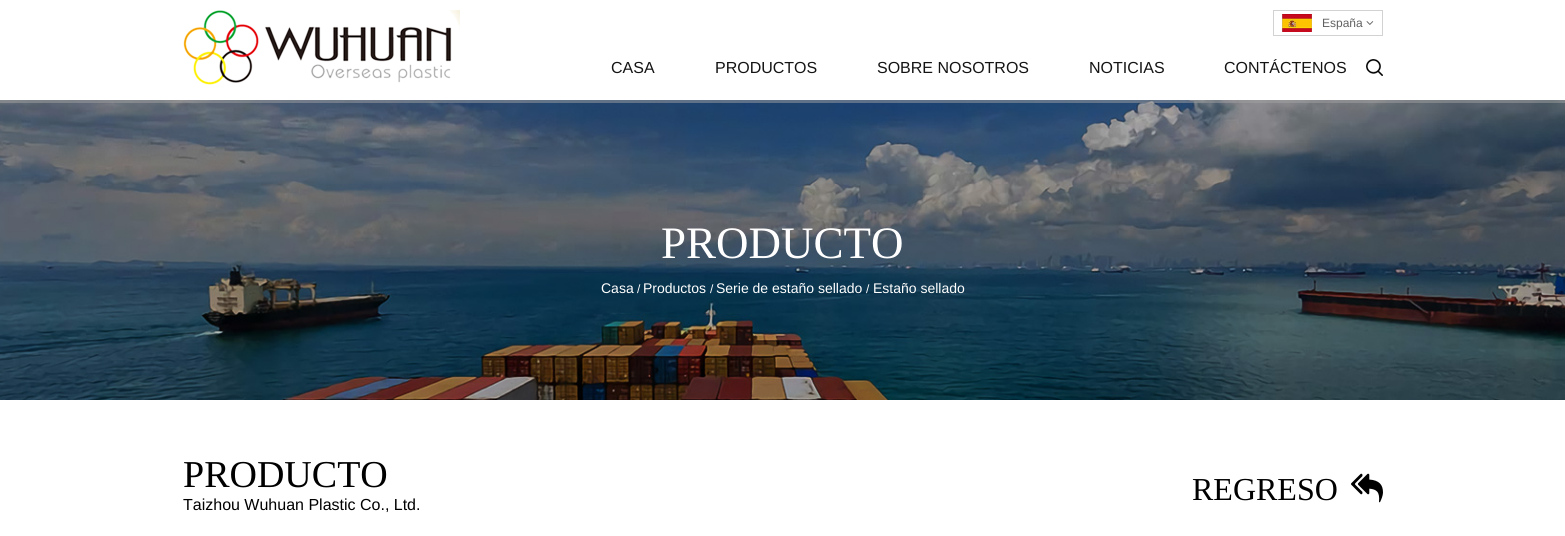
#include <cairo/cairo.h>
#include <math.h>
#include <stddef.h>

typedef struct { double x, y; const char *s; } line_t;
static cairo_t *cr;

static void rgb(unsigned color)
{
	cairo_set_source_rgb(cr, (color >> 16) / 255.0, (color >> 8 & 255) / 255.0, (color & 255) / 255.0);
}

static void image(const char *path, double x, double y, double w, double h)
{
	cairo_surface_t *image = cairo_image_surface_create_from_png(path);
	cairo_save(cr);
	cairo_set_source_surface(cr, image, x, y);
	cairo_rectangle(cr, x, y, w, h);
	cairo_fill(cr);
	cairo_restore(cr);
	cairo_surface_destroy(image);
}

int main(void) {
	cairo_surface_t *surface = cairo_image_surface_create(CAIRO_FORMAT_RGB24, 1565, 536);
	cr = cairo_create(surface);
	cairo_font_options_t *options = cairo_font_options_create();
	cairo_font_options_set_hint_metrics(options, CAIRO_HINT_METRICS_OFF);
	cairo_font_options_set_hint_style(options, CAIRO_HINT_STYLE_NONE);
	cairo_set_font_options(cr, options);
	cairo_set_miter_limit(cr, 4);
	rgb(0xffffff);
	cairo_paint(cr);
	image("img/5.png", 0, 100, 1565, 300);
	cairo_rectangle(cr, -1.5, -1.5, 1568, 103);
	cairo_set_source_rgba(cr, 0.639, 0.635, 0.635, 0.5);
	cairo_set_line_width(cr, 3);
	cairo_stroke(cr);
	image("img/1.png", 183, 10, 277, 75);
	cairo_rectangle(cr, 1273.5, 10.5, 109, 25);
	rgb(0xd2d2d2);
	cairo_set_line_width(cr, 1);
	cairo_stroke(cr);
	image("img/2.png", 1281, 14, 31, 18);
	image("img/3.png", 1366, 21, 8, 4);
	image("img/4.png", 1366, 59, 17, 17);
	image("img/6.png", 1351, 473, 32, 30);
	cairo_select_font_face(cr, "Liberation Sans", CAIRO_FONT_SLANT_NORMAL, CAIRO_FONT_WEIGHT_NORMAL);
	cairo_set_font_size(cr, 12);
	rgb(0x616161);
	cairo_move_to(cr, 1322, 27);
	cairo_show_text(cr, "España");
	cairo_set_font_size(cr, 16);
	rgb(0x141414);
	{
		static const line_t items[] = {
			{611, 73, "CASA"},
			{715, 73, "PRODUCTOS"},
			{877, 73, "SOBRE NOSOTROS"},
			{1089, 73, "NOTICIAS"},
			{1224, 73, "CONTÁCTENOS"},
		};
		for (size_t i = 0; i < sizeof items / sizeof *items; i++) {
			cairo_move_to(cr, items[i].x, items[i].y);
			cairo_show_text(cr, items[i].s);
		}
	}
	cairo_select_font_face(cr, "Liberation Serif", CAIRO_FONT_SLANT_NORMAL, CAIRO_FONT_WEIGHT_NORMAL);
	cairo_set_font_size(cr, 45);
	rgb(0xffffff);
	cairo_move_to(cr, 661, 258);
	cairo_show_text(cr, "PRODUCTO");
	cairo_select_font_face(cr, "Liberation Sans", CAIRO_FONT_SLANT_NORMAL, CAIRO_FONT_WEIGHT_NORMAL);
	cairo_set_font_size(cr, 14);
	cairo_move_to(cr, 601, 293);
	cairo_show_text(cr, "Casa");
	cairo_set_font_size(cr, 12);
	cairo_move_to(cr, 637, 293);
	cairo_show_text(cr, "/");
	cairo_set_font_size(cr, 14);
	cairo_move_to(cr, 643, 293);
	cairo_show_text(cr, "Productos");
	cairo_set_font_size(cr, 12);
	cairo_move_to(cr, 710, 293);
	cairo_show_text(cr, "/");
	cairo_set_font_size(cr, 14);
	cairo_move_to(cr, 716, 293);
	cairo_show_text(cr, "Serie de estaño sellado");
	cairo_set_font_size(cr, 12);
	cairo_move_to(cr, 866, 293);
	cairo_show_text(cr, "/");
	cairo_set_font_size(cr, 14);
	cairo_move_to(cr, 873, 293);
	cairo_show_text(cr, "Estaño sellado");
	cairo_select_font_face(cr, "Liberation Serif", CAIRO_FONT_SLANT_NORMAL, CAIRO_FONT_WEIGHT_NORMAL);
	cairo_set_font_size(cr, 38);
	rgb(0x000000);
	cairo_move_to(cr, 183, 487);
	cairo_show_text(cr, "PRODUCTO");
	cairo_select_font_face(cr, "Liberation Sans", CAIRO_FONT_SLANT_NORMAL, CAIRO_FONT_WEIGHT_NORMAL);
	cairo_set_font_size(cr, 16);
	cairo_move_to(cr, 183, 510);
	cairo_show_text(cr, "Taizhou Wuhuan Plastic Co., Ltd.");
	cairo_select_font_face(cr, "Liberation Serif", CAIRO_FONT_SLANT_NORMAL, CAIRO_FONT_WEIGHT_NORMAL);
	cairo_set_font_size(cr, 32);
	cairo_move_to(cr, 1192, 500);
	cairo_show_text(cr, "REGRESO");
	cairo_surface_write_to_png(surface, "page.png");
	cairo_font_options_destroy(options);
	cairo_destroy(cr);
	cairo_surface_destroy(surface);
	return 0;
}
